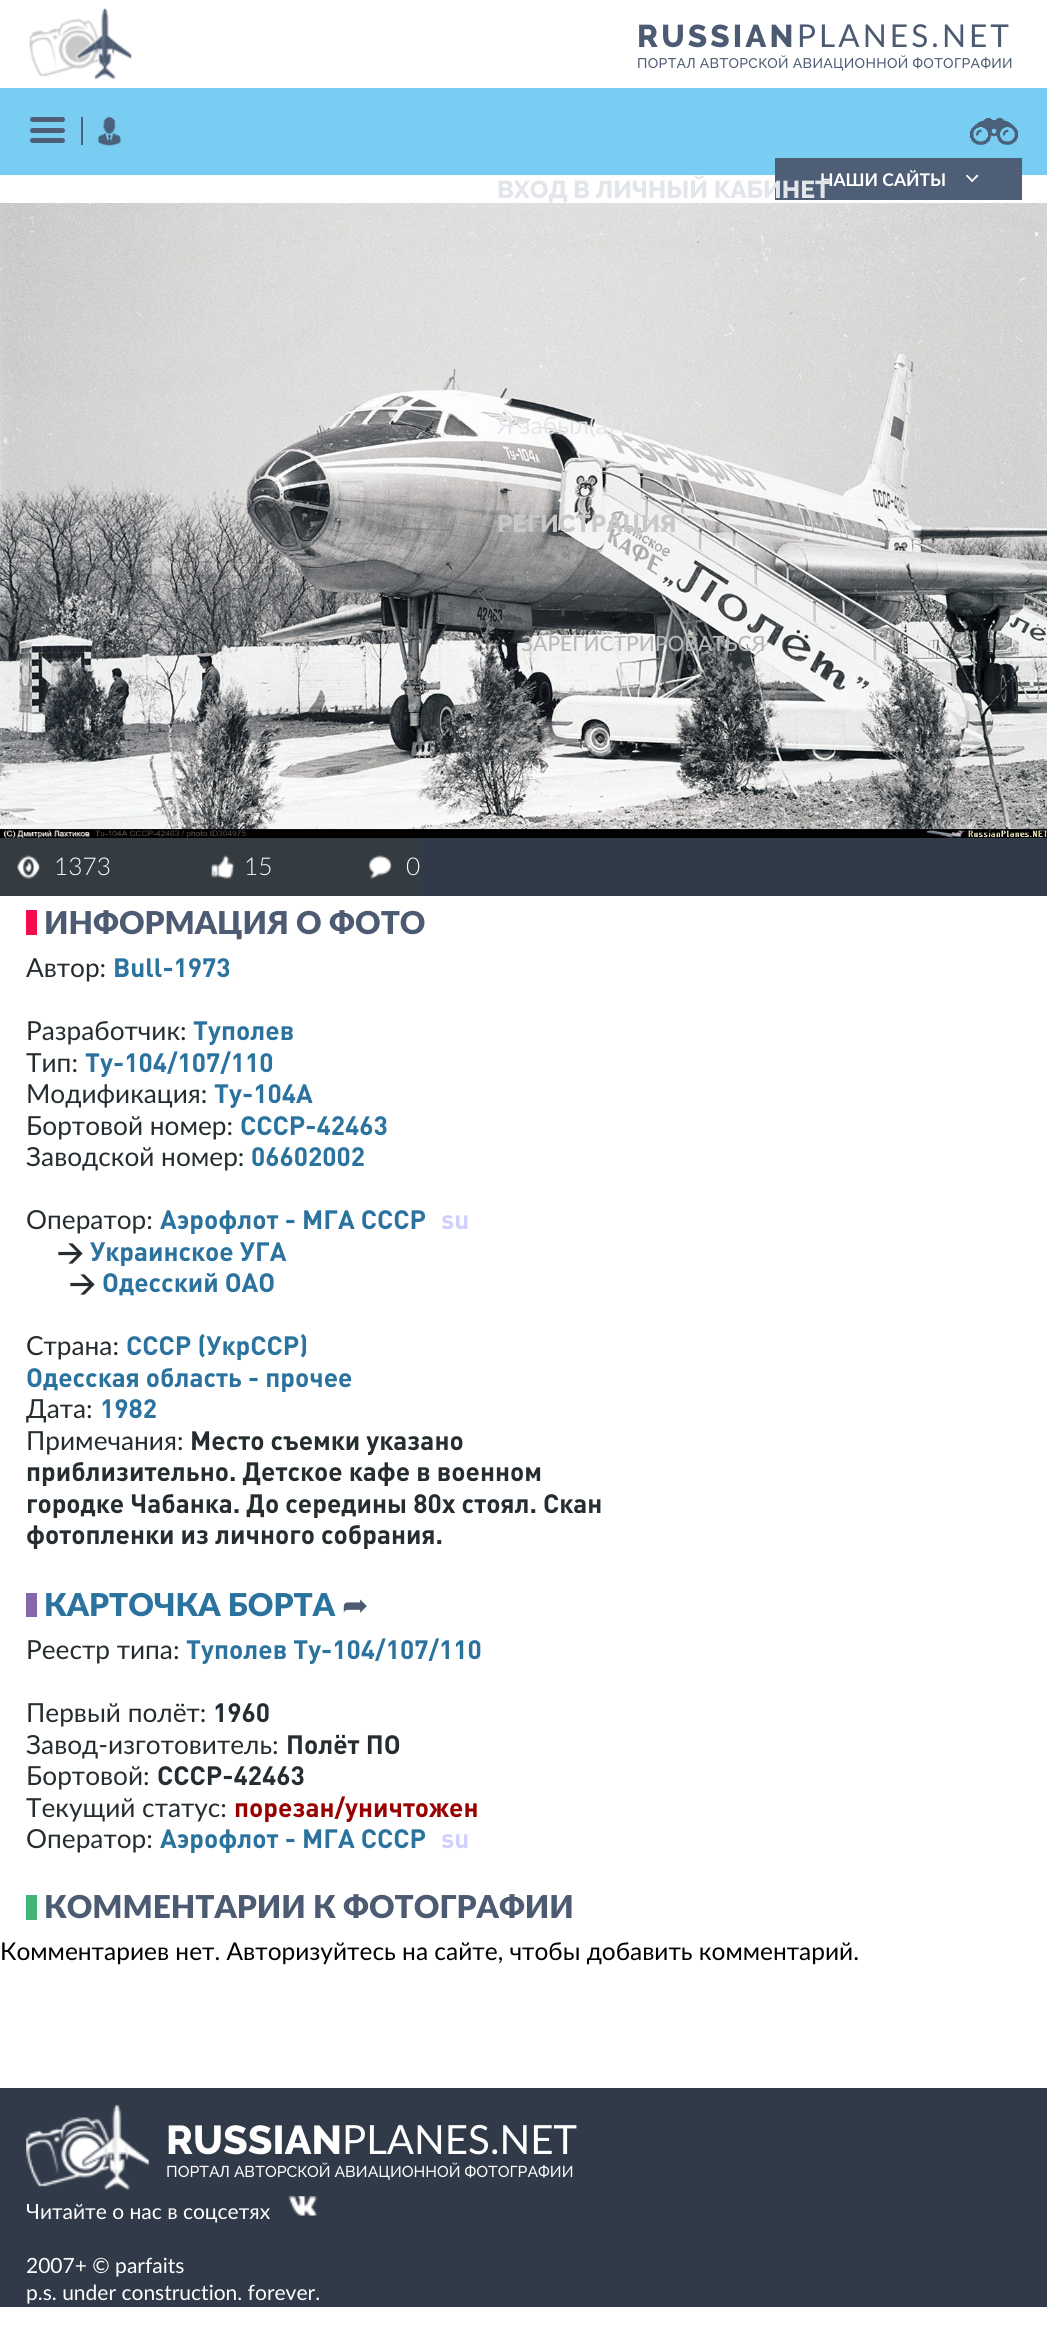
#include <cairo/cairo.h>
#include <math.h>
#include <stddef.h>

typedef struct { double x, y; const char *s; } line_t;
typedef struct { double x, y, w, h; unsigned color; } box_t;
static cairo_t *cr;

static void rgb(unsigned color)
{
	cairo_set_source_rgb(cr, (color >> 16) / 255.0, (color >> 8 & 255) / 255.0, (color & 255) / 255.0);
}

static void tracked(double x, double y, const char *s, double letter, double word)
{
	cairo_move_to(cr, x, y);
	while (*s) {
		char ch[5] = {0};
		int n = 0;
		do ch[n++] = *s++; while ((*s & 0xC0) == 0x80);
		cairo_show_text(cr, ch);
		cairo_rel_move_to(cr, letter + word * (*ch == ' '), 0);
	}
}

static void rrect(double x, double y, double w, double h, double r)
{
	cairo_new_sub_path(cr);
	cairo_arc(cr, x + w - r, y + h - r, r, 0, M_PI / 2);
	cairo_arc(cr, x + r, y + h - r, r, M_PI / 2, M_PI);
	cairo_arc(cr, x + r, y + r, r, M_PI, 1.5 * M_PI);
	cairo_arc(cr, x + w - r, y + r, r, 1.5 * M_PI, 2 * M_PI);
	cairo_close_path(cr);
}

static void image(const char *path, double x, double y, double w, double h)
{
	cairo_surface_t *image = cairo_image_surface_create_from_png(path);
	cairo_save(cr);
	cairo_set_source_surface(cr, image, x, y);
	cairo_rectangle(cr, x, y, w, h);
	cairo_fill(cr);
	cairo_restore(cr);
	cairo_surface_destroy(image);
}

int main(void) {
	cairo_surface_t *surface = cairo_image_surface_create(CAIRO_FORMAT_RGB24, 1047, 2332);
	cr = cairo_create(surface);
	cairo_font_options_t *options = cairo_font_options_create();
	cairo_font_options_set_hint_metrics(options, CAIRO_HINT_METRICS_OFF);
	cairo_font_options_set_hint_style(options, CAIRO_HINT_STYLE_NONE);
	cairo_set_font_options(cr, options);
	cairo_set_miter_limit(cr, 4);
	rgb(0xffffff);
	cairo_paint(cr);
	image("img/1.png", 29, 8, 103, 71);
	rgb(0x79cdf2);
	cairo_rectangle(cr, 0, 88, 1047, 87);
	cairo_fill(cr);
	rgb(0x4e5e77);
	rrect(30, 117, 35, 5, 2.5);
	cairo_fill(cr);
	rrect(30, 128, 35, 5, 2.5);
	cairo_fill(cr);
	rrect(30, 138, 35, 5, 2.5);
	cairo_fill(cr);
	cairo_rectangle(cr, 81, 117, 2, 28);
	cairo_fill(cr);
	image("img/2.png", 969, 117, 50, 29);
	image("img/3.png", 98, 117, 23, 29);
	cairo_rectangle(cr, 775, 158, 247, 42);
	cairo_fill(cr);
	rgb(0xffffff);
	cairo_new_path(cr);
	cairo_move_to(cr, 977, 174.5);
	cairo_line_to(cr, 978.5, 176);
	cairo_line_to(cr, 972, 182);
	cairo_line_to(cr, 971, 181);
	cairo_close_path(cr);
	cairo_fill(cr);
	cairo_new_path(cr);
	cairo_move_to(cr, 967, 174.5);
	cairo_line_to(cr, 973.5, 181);
	cairo_line_to(cr, 972, 182);
	cairo_line_to(cr, 966, 176);
	cairo_close_path(cr);
	cairo_fill(cr);
	image("img/4.png", 0, 203, 1047, 635);
	rgb(0x313a49);
	cairo_rectangle(cr, 420, 838, 627, 58);
	cairo_fill(cr);
	rgb(0x343b41);
	cairo_rectangle(cr, 0, 838, 420, 58);
	cairo_fill(cr);
	image("img/5.png", 17, 855, 23, 24);
	image("img/6.png", 211, 855, 24, 24);
	image("img/7.png", 369, 855, 23, 24);
	{
		static const box_t items[] = {
			{26, 910, 11, 25, 0xf50c4d},
			{26, 1593, 11, 24, 0x8567ab},
			{26, 1895, 11, 25, 0x42b574},
			{0, 2088, 1047, 219, 0x313a49},
		};
		for (size_t i = 0; i < sizeof items / sizeof *items; i++) {
			rgb(items[i].color);
			cairo_rectangle(cr, items[i].x, items[i].y, items[i].w, items[i].h);
			cairo_fill(cr);
		}
	}
	image("img/8.png", 26, 2105, 123, 85);
	image("img/9.png", 288, 2196, 29, 20);
	cairo_select_font_face(cr, "Raleway ExtraBold", CAIRO_FONT_SLANT_NORMAL, CAIRO_FONT_WEIGHT_NORMAL);
	cairo_set_font_size(cr, 31.5);
	rgb(0x4c5b72);
	tracked(637, 47, "RUSSIAN", 3.1, 0);
	cairo_select_font_face(cr, "Lato", CAIRO_FONT_SLANT_NORMAL, CAIRO_FONT_WEIGHT_NORMAL);
	tracked(797, 47, "PLANES.NET", 3.1, 0);
	cairo_select_font_face(cr, "Raleway Medium", CAIRO_FONT_SLANT_NORMAL, CAIRO_FONT_WEIGHT_NORMAL);
	cairo_set_font_size(cr, 14);
	tracked(637, 68, "ПОРТАЛ АВТОРСКОЙ АВИАЦИОННОЙ ФОТОГРАФИИ", 0.35, 0);
	cairo_select_font_face(cr, "Lato", CAIRO_FONT_SLANT_NORMAL, CAIRO_FONT_WEIGHT_NORMAL);
	cairo_set_font_size(cr, 24.5);
	rgb(0xe2e5e9);
	cairo_move_to(cr, 497, 434);
	cairo_show_text(cr, "Я забыл(а) п");
	cairo_select_font_face(cr, "Raleway ExtraBold", CAIRO_FONT_SLANT_NORMAL, CAIRO_FONT_WEIGHT_NORMAL);
	rgb(0xc8c8c8);
	cairo_move_to(cr, 497, 532);
	cairo_show_text(cr, "РЕГИСТРАЦИЯ");
	cairo_select_font_face(cr, "Lato", CAIRO_FONT_SLANT_NORMAL, CAIRO_FONT_WEIGHT_NORMAL);
	cairo_set_font_size(cr, 21);
	rgb(0x6c6f71);
	cairo_move_to(cr, 508, 592);
	cairo_show_text(cr, "*");
	cairo_select_font_face(cr, "Lato Medium", CAIRO_FONT_SLANT_NORMAL, CAIRO_FONT_WEIGHT_NORMAL);
	rgb(0xb8b9ba);
	cairo_move_to(cr, 521, 651);
	cairo_show_text(cr, "ЗАРЕГИСТРИРОВАТЬСЯ");
	cairo_select_font_face(cr, "Lato", CAIRO_FONT_SLANT_NORMAL, CAIRO_FONT_WEIGHT_BOLD);
	cairo_set_font_size(cr, 17.5);
	rgb(0xffffff);
	cairo_move_to(cr, 820, 186);
	cairo_show_text(cr, "НАШИ САЙТЫ");
	cairo_select_font_face(cr, "Raleway ExtraBold", CAIRO_FONT_SLANT_NORMAL, CAIRO_FONT_WEIGHT_NORMAL);
	cairo_set_font_size(cr, 24.5);
	rgb(0xe2e5e9);
	cairo_move_to(cr, 497, 198);
	cairo_show_text(cr, "ВХОД В ЛИЧНЫЙ КАБИНЕТ");
	cairo_select_font_face(cr, "Lato Light", CAIRO_FONT_SLANT_NORMAL, CAIRO_FONT_WEIGHT_NORMAL);
	rgb(0xffffff);
	{
		static const line_t items[] = {
			{54, 875, "1373"},
			{244, 875, "15"},
			{406, 875, "0"},
		};
		for (size_t i = 0; i < sizeof items / sizeof *items; i++) {
			cairo_move_to(cr, items[i].x, items[i].y);
			cairo_show_text(cr, items[i].s);
		}
	}
	cairo_select_font_face(cr, "Lato Black", CAIRO_FONT_SLANT_NORMAL, CAIRO_FONT_WEIGHT_NORMAL);
	cairo_set_font_size(cr, 31.5);
	rgb(0x4c5b72);
	cairo_move_to(cr, 44, 934);
	cairo_show_text(cr, "ИНФОРМАЦИЯ О ФОТО");
	cairo_select_font_face(cr, "Lato", CAIRO_FONT_SLANT_NORMAL, CAIRO_FONT_WEIGHT_NORMAL);
	cairo_set_font_size(cr, 26.25);
	rgb(0x262d31);
	cairo_move_to(cr, 26, 977);
	cairo_show_text(cr, "Автор:");
	cairo_select_font_face(cr, "DIN", CAIRO_FONT_SLANT_NORMAL, CAIRO_FONT_WEIGHT_BOLD);
	rgb(0x2b739e);
	cairo_move_to(cr, 113, 977);
	cairo_show_text(cr, "Bull-1973");
	cairo_select_font_face(cr, "Lato", CAIRO_FONT_SLANT_NORMAL, CAIRO_FONT_WEIGHT_NORMAL);
	rgb(0x262d31);
	cairo_move_to(cr, 26, 1040);
	cairo_show_text(cr, "Разработчик:");
	cairo_select_font_face(cr, "DIN", CAIRO_FONT_SLANT_NORMAL, CAIRO_FONT_WEIGHT_BOLD);
	rgb(0x2b739e);
	cairo_move_to(cr, 193, 1040);
	cairo_show_text(cr, "Туполев");
	cairo_select_font_face(cr, "Lato", CAIRO_FONT_SLANT_NORMAL, CAIRO_FONT_WEIGHT_NORMAL);
	rgb(0x262d31);
	cairo_move_to(cr, 26, 1072);
	cairo_show_text(cr, "Тип:");
	cairo_select_font_face(cr, "DIN", CAIRO_FONT_SLANT_NORMAL, CAIRO_FONT_WEIGHT_BOLD);
	rgb(0x2b739e);
	cairo_move_to(cr, 85, 1072);
	cairo_show_text(cr, "Ту-104/107/110");
	cairo_select_font_face(cr, "Lato", CAIRO_FONT_SLANT_NORMAL, CAIRO_FONT_WEIGHT_NORMAL);
	rgb(0x262d31);
	cairo_move_to(cr, 26, 1103);
	cairo_show_text(cr, "Модификация:");
	cairo_select_font_face(cr, "DIN", CAIRO_FONT_SLANT_NORMAL, CAIRO_FONT_WEIGHT_BOLD);
	rgb(0x2b739e);
	cairo_move_to(cr, 214, 1103);
	cairo_show_text(cr, "Ту-104А");
	cairo_select_font_face(cr, "Lato", CAIRO_FONT_SLANT_NORMAL, CAIRO_FONT_WEIGHT_NORMAL);
	rgb(0x262d31);
	cairo_move_to(cr, 26, 1135);
	cairo_show_text(cr, "Бортовой номер:");
	cairo_select_font_face(cr, "DIN", CAIRO_FONT_SLANT_NORMAL, CAIRO_FONT_WEIGHT_BOLD);
	rgb(0x2b739e);
	cairo_move_to(cr, 240, 1135);
	cairo_show_text(cr, "СССР-42463");
	cairo_select_font_face(cr, "Lato", CAIRO_FONT_SLANT_NORMAL, CAIRO_FONT_WEIGHT_NORMAL);
	rgb(0x262d31);
	cairo_move_to(cr, 26, 1166);
	cairo_show_text(cr, "Заводской номер:");
	cairo_select_font_face(cr, "DIN", CAIRO_FONT_SLANT_NORMAL, CAIRO_FONT_WEIGHT_BOLD);
	rgb(0x2b739e);
	cairo_move_to(cr, 251, 1166);
	cairo_show_text(cr, "06602002");
	cairo_select_font_face(cr, "Lato", CAIRO_FONT_SLANT_NORMAL, CAIRO_FONT_WEIGHT_NORMAL);
	rgb(0x262d31);
	cairo_move_to(cr, 26, 1229);
	cairo_show_text(cr, "Оператор:");
	cairo_select_font_face(cr, "DIN", CAIRO_FONT_SLANT_NORMAL, CAIRO_FONT_WEIGHT_BOLD);
	rgb(0x2b739e);
	cairo_move_to(cr, 160, 1229);
	cairo_show_text(cr, "Аэрофлот - МГА СССР");
	rgb(0xd0d0ff);
	cairo_move_to(cr, 441, 1229);
	cairo_show_text(cr, "su");
	rgb(0x262d31);
	cairo_move_to(cr, 57, 1261);
	cairo_show_text(cr, "→");
	rgb(0x2b739e);
	cairo_move_to(cr, 90, 1261);
	cairo_show_text(cr, "Украинское УГА");
	rgb(0x262d31);
	cairo_move_to(cr, 69, 1292);
	cairo_show_text(cr, "→");
	rgb(0x2b739e);
	cairo_move_to(cr, 102, 1292);
	cairo_show_text(cr, "Одесский ОАО");
	cairo_select_font_face(cr, "Lato", CAIRO_FONT_SLANT_NORMAL, CAIRO_FONT_WEIGHT_NORMAL);
	rgb(0x262d31);
	cairo_move_to(cr, 26, 1355);
	cairo_show_text(cr, "Страна:");
	cairo_select_font_face(cr, "DIN", CAIRO_FONT_SLANT_NORMAL, CAIRO_FONT_WEIGHT_BOLD);
	rgb(0x2b739e);
	cairo_move_to(cr, 126, 1355);
	cairo_show_text(cr, "СССР (УкрССР)");
	cairo_move_to(cr, 26, 1387);
	cairo_show_text(cr, "Одесская область - прочее");
	cairo_select_font_face(cr, "Lato", CAIRO_FONT_SLANT_NORMAL, CAIRO_FONT_WEIGHT_NORMAL);
	rgb(0x262d31);
	cairo_move_to(cr, 26, 1418);
	cairo_show_text(cr, "Дата:");
	cairo_select_font_face(cr, "DIN", CAIRO_FONT_SLANT_NORMAL, CAIRO_FONT_WEIGHT_BOLD);
	rgb(0x2b739e);
	cairo_move_to(cr, 100, 1418);
	cairo_show_text(cr, "1982");
	cairo_select_font_face(cr, "Lato", CAIRO_FONT_SLANT_NORMAL, CAIRO_FONT_WEIGHT_NORMAL);
	rgb(0x262d31);
	cairo_move_to(cr, 26, 1450);
	cairo_show_text(cr, "Примечания:");
	cairo_select_font_face(cr, "DIN", CAIRO_FONT_SLANT_NORMAL, CAIRO_FONT_WEIGHT_BOLD);
	{
		static const line_t items[] = {
			{190, 1450, "Место съемки указано"},
			{26, 1481, "приблизительно. Детское кафе в военном"},
			{26, 1513, "городке Чабанка. До середины 80х стоял. Скан"},
			{26, 1544, "фотопленки из личного собрания."},
		};
		for (size_t i = 0; i < sizeof items / sizeof *items; i++) {
			cairo_move_to(cr, items[i].x, items[i].y);
			cairo_show_text(cr, items[i].s);
		}
	}
	cairo_select_font_face(cr, "Lato Black", CAIRO_FONT_SLANT_NORMAL, CAIRO_FONT_WEIGHT_NORMAL);
	cairo_set_font_size(cr, 31.5);
	rgb(0x2b739e);
	cairo_move_to(cr, 44, 1616);
	cairo_show_text(cr, "КАРТОЧКА БОРТА");
	cairo_select_font_face(cr, "DejaVu Sans", CAIRO_FONT_SLANT_NORMAL, CAIRO_FONT_WEIGHT_NORMAL);
	rgb(0x4c5b72);
	cairo_move_to(cr, 342, 1616);
	cairo_show_text(cr, "➦");
	cairo_select_font_face(cr, "Lato", CAIRO_FONT_SLANT_NORMAL, CAIRO_FONT_WEIGHT_NORMAL);
	cairo_set_font_size(cr, 26.25);
	rgb(0x262d31);
	cairo_move_to(cr, 26, 1659);
	cairo_show_text(cr, "Реестр типа:");
	cairo_select_font_face(cr, "DIN", CAIRO_FONT_SLANT_NORMAL, CAIRO_FONT_WEIGHT_BOLD);
	rgb(0x2b739e);
	cairo_move_to(cr, 186, 1659);
	cairo_show_text(cr, "Туполев Ту-104/107/110");
	cairo_select_font_face(cr, "Lato", CAIRO_FONT_SLANT_NORMAL, CAIRO_FONT_WEIGHT_NORMAL);
	rgb(0x262d31);
	cairo_move_to(cr, 26, 1722);
	cairo_show_text(cr, "Первый полёт:");
	cairo_select_font_face(cr, "DIN", CAIRO_FONT_SLANT_NORMAL, CAIRO_FONT_WEIGHT_BOLD);
	cairo_move_to(cr, 213, 1722);
	cairo_show_text(cr, "1960");
	cairo_select_font_face(cr, "Lato", CAIRO_FONT_SLANT_NORMAL, CAIRO_FONT_WEIGHT_NORMAL);
	cairo_move_to(cr, 26, 1754);
	cairo_show_text(cr, "Завод-изготовитель:");
	cairo_select_font_face(cr, "DIN", CAIRO_FONT_SLANT_NORMAL, CAIRO_FONT_WEIGHT_BOLD);
	cairo_move_to(cr, 286, 1754);
	cairo_show_text(cr, "Полёт ПО");
	cairo_select_font_face(cr, "Lato", CAIRO_FONT_SLANT_NORMAL, CAIRO_FONT_WEIGHT_NORMAL);
	cairo_move_to(cr, 26, 1785);
	cairo_show_text(cr, "Бортовой:");
	cairo_select_font_face(cr, "DIN", CAIRO_FONT_SLANT_NORMAL, CAIRO_FONT_WEIGHT_BOLD);
	cairo_move_to(cr, 157, 1785);
	cairo_show_text(cr, "СССР-42463");
	cairo_select_font_face(cr, "Lato", CAIRO_FONT_SLANT_NORMAL, CAIRO_FONT_WEIGHT_NORMAL);
	cairo_move_to(cr, 26, 1817);
	cairo_show_text(cr, "Текущий статус:");
	cairo_select_font_face(cr, "DIN", CAIRO_FONT_SLANT_NORMAL, CAIRO_FONT_WEIGHT_BOLD);
	rgb(0x990000);
	cairo_move_to(cr, 234, 1817);
	cairo_show_text(cr, "порезан/уничтожен");
	cairo_select_font_face(cr, "Lato", CAIRO_FONT_SLANT_NORMAL, CAIRO_FONT_WEIGHT_NORMAL);
	rgb(0x262d31);
	cairo_move_to(cr, 26, 1848);
	cairo_show_text(cr, "Оператор:");
	cairo_select_font_face(cr, "DIN", CAIRO_FONT_SLANT_NORMAL, CAIRO_FONT_WEIGHT_BOLD);
	rgb(0x2b739e);
	cairo_move_to(cr, 160, 1848);
	cairo_show_text(cr, "Аэрофлот - МГА СССР");
	rgb(0xd0d0ff);
	cairo_move_to(cr, 441, 1848);
	cairo_show_text(cr, "su");
	cairo_select_font_face(cr, "Lato Black", CAIRO_FONT_SLANT_NORMAL, CAIRO_FONT_WEIGHT_NORMAL);
	cairo_set_font_size(cr, 31.5);
	rgb(0x4c5b72);
	cairo_move_to(cr, 44, 1918);
	cairo_show_text(cr, "КОММЕНТАРИИ К ФОТОГРАФИИ");
	cairo_select_font_face(cr, "Lato", CAIRO_FONT_SLANT_NORMAL, CAIRO_FONT_WEIGHT_NORMAL);
	cairo_set_font_size(cr, 24.5);
	rgb(0x000000);
	cairo_move_to(cr, 0, 1960);
	cairo_show_text(cr, "Комментариев нет. Авторизуйтесь на сайте, чтобы добавить комментарий.");
	cairo_select_font_face(cr, "Raleway ExtraBold", CAIRO_FONT_SLANT_NORMAL, CAIRO_FONT_WEIGHT_NORMAL);
	cairo_set_font_size(cr, 40.25);
	rgb(0xffffff);
	cairo_move_to(cr, 166, 2154);
	cairo_show_text(cr, "RUSSIAN");
	cairo_select_font_face(cr, "Lato", CAIRO_FONT_SLANT_NORMAL, CAIRO_FONT_WEIGHT_NORMAL);
	cairo_move_to(cr, 342, 2154);
	cairo_show_text(cr, "PLANES.NET");
	cairo_select_font_face(cr, "Raleway Medium", CAIRO_FONT_SLANT_NORMAL, CAIRO_FONT_WEIGHT_NORMAL);
	cairo_set_font_size(cr, 15.75);
	cairo_move_to(cr, 166, 2177);
	cairo_show_text(cr, "ПОРТАЛ АВТОРСКОЙ АВИАЦИОННОЙ ФОТОГРАФИИ");
	cairo_select_font_face(cr, "Lato", CAIRO_FONT_SLANT_NORMAL, CAIRO_FONT_WEIGHT_NORMAL);
	cairo_set_font_size(cr, 21);
	{
		static const line_t items[] = {
			{26, 2219, "Читайте о нас в соцсетях"},
			{26, 2273, "2007+ © parfaits"},
			{26, 2300, "p.s. under construction. forever."},
		};
		for (size_t i = 0; i < sizeof items / sizeof *items; i++) {
			cairo_move_to(cr, items[i].x, items[i].y);
			cairo_show_text(cr, items[i].s);
		}
	}
	cairo_surface_write_to_png(surface, "page.png");
	cairo_font_options_destroy(options);
	cairo_destroy(cr);
	cairo_surface_destroy(surface);
	return 0;
}
